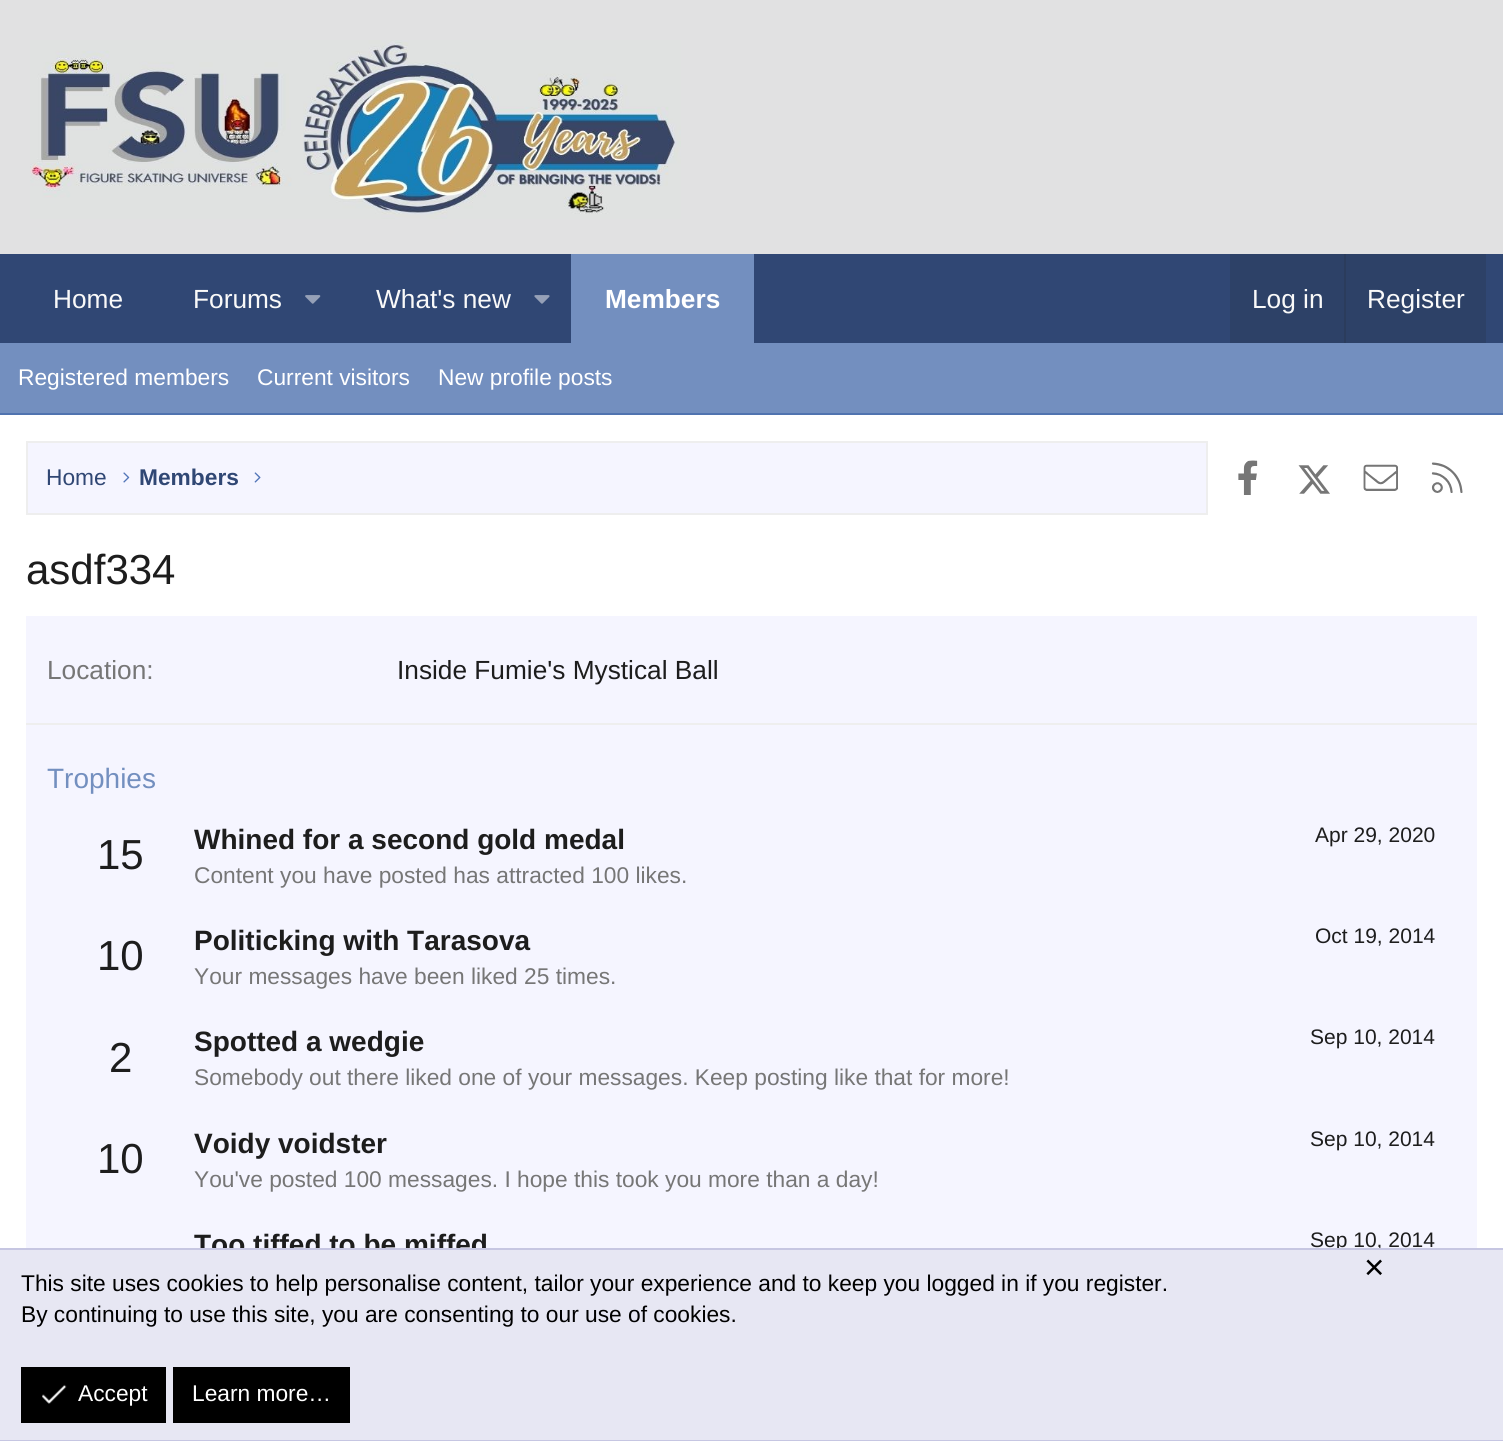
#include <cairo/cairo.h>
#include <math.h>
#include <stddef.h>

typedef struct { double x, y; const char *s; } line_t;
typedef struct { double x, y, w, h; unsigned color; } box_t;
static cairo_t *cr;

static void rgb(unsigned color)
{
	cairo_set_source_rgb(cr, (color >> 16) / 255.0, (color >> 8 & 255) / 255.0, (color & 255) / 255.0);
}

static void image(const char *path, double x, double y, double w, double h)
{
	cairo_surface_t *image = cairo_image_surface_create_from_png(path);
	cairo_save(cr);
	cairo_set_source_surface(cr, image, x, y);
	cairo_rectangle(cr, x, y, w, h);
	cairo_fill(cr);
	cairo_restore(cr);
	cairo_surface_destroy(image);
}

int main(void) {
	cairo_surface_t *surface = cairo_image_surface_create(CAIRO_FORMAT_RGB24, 1503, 1441);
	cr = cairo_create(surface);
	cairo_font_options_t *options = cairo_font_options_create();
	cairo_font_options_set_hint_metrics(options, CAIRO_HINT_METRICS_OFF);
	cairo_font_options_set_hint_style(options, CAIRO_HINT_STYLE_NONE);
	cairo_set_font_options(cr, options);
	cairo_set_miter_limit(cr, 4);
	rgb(0xe1e1e2);
	cairo_paint(cr);
	image("img/1.png", 30, 40, 651, 179);
	rgb(0x304774);
	cairo_rectangle(cr, 0, 254, 1503, 89);
	cairo_fill(cr);
	image("img/2.png", 305, 295, 16, 9);
	image("img/3.png", 534, 295, 16, 9);
	{
		static const box_t items[] = {
			{571, 254, 183, 89, 0x738fbf},
			{1230, 254, 256, 89, 0x2d4167},
			{1344, 254, 2, 89, 0x2b3c5c},
			{0, 343, 1503, 70, 0x738fbf},
			{0, 413, 1503, 2, 0x5073af},
			{0, 415, 1503, 833, 0xffffff},
		};
		for (size_t i = 0; i < sizeof items / sizeof *items; i++) {
			rgb(items[i].color);
			cairo_rectangle(cr, items[i].x, items[i].y, items[i].w, items[i].h);
			cairo_fill(cr);
		}
	}
	rgb(0xf5f5ff);
	cairo_rectangle(cr, 27, 442, 1180, 72);
	cairo_fill_preserve(cr);
	rgb(0xeeeeee);
	cairo_stroke(cr);
	image("img/4.png", 123, 472, 7, 11);
	image("img/5.png", 254, 472, 7, 11);
	image("img/6.png", 1238, 460, 20, 35);
	image("img/7.png", 1298, 465, 32, 29);
	image("img/8.png", 1363, 464, 35, 27);
	image("img/9.png", 1431, 462, 32, 31);
	{
		static const box_t items[] = {
			{26, 616, 1451, 632, 0xf5f5ff},
			{26, 723, 1451, 2, 0xeeeeee},
			{0, 1440, 1503, 1, 0xc6c6e2},
		};
		for (size_t i = 0; i < sizeof items / sizeof *items; i++) {
			rgb(items[i].color);
			cairo_rectangle(cr, items[i].x, items[i].y, items[i].w, items[i].h);
			cairo_fill(cr);
		}
	}
	cairo_select_font_face(cr, "Liberation Sans", CAIRO_FONT_SLANT_NORMAL, CAIRO_FONT_WEIGHT_NORMAL);
	cairo_set_font_size(cr, 26.25);
	rgb(0xf9f9f9);
	{
		static const line_t items[] = {
			{53, 308, "Home"},
			{193, 308, "Forums"},
			{376, 308, "What's new"},
		};
		for (size_t i = 0; i < sizeof items / sizeof *items; i++) {
			cairo_move_to(cr, items[i].x, items[i].y);
			cairo_show_text(cr, items[i].s);
		}
	}
	cairo_select_font_face(cr, "Liberation Sans", CAIRO_FONT_SLANT_NORMAL, CAIRO_FONT_WEIGHT_BOLD);
	rgb(0xffffff);
	cairo_move_to(cr, 605, 308);
	cairo_show_text(cr, "Members");
	cairo_select_font_face(cr, "Liberation Sans", CAIRO_FONT_SLANT_NORMAL, CAIRO_FONT_WEIGHT_NORMAL);
	rgb(0xf9f9f9);
	cairo_move_to(cr, 1252, 308);
	cairo_show_text(cr, "Log in");
	cairo_move_to(cr, 1367, 308);
	cairo_show_text(cr, "Register");
	cairo_set_font_size(cr, 22.75);
	rgb(0xffffff);
	{
		static const line_t items[] = {
			{18, 385, "Registered members"},
			{257, 385, "Current visitors"},
			{438, 385, "New profile posts"},
		};
		for (size_t i = 0; i < sizeof items / sizeof *items; i++) {
			cairo_move_to(cr, items[i].x, items[i].y);
			cairo_show_text(cr, items[i].s);
		}
	}
	rgb(0x304774);
	cairo_move_to(cr, 46, 485);
	cairo_show_text(cr, "Home");
	cairo_select_font_face(cr, "Liberation Sans", CAIRO_FONT_SLANT_NORMAL, CAIRO_FONT_WEIGHT_BOLD);
	cairo_move_to(cr, 139, 485);
	cairo_show_text(cr, "Members");
	cairo_select_font_face(cr, "Liberation Sans", CAIRO_FONT_SLANT_NORMAL, CAIRO_FONT_WEIGHT_NORMAL);
	cairo_set_font_size(cr, 42);
	rgb(0x1d1d1d);
	cairo_move_to(cr, 26, 584);
	cairo_show_text(cr, "asdf334");
	cairo_set_font_size(cr, 26.25);
	rgb(0x767676);
	cairo_move_to(cr, 47, 679);
	cairo_show_text(cr, "Location:");
	rgb(0x1d1d1d);
	cairo_move_to(cr, 397, 679);
	cairo_show_text(cr, "Inside Fumie's Mystical Ball");
	cairo_set_font_size(cr, 28);
	rgb(0x738fbf);
	cairo_move_to(cr, 47, 788);
	cairo_show_text(cr, "Trophies");
	cairo_set_font_size(cr, 42);
	rgb(0x1d1d1d);
	cairo_move_to(cr, 97, 869);
	cairo_show_text(cr, "15");
	cairo_select_font_face(cr, "Liberation Sans", CAIRO_FONT_SLANT_NORMAL, CAIRO_FONT_WEIGHT_BOLD);
	cairo_set_font_size(cr, 28);
	cairo_move_to(cr, 194, 849);
	cairo_show_text(cr, "Whined for a second gold medal");
	cairo_select_font_face(cr, "Liberation Sans", CAIRO_FONT_SLANT_NORMAL, CAIRO_FONT_WEIGHT_NORMAL);
	cairo_set_font_size(cr, 21);
	cairo_move_to(cr, 1315, 842);
	cairo_show_text(cr, "Apr 29, 2020");
	cairo_set_font_size(cr, 22.75);
	rgb(0x767676);
	cairo_move_to(cr, 194, 883);
	cairo_show_text(cr, "Content you have posted has attracted 100 likes.");
	cairo_set_font_size(cr, 42);
	rgb(0x1d1d1d);
	cairo_move_to(cr, 97, 970);
	cairo_show_text(cr, "10");
	cairo_select_font_face(cr, "Liberation Sans", CAIRO_FONT_SLANT_NORMAL, CAIRO_FONT_WEIGHT_BOLD);
	cairo_set_font_size(cr, 28);
	cairo_move_to(cr, 194, 950);
	cairo_show_text(cr, "Politicking with Tarasova");
	cairo_select_font_face(cr, "Liberation Sans", CAIRO_FONT_SLANT_NORMAL, CAIRO_FONT_WEIGHT_NORMAL);
	cairo_set_font_size(cr, 21);
	cairo_move_to(cr, 1315, 943);
	cairo_show_text(cr, "Oct 19, 2014");
	cairo_set_font_size(cr, 22.75);
	rgb(0x767676);
	cairo_move_to(cr, 194, 984);
	cairo_show_text(cr, "Your messages have been liked 25 times.");
	cairo_set_font_size(cr, 42);
	rgb(0x1d1d1d);
	cairo_move_to(cr, 109, 1072);
	cairo_show_text(cr, "2");
	cairo_select_font_face(cr, "Liberation Sans", CAIRO_FONT_SLANT_NORMAL, CAIRO_FONT_WEIGHT_BOLD);
	cairo_set_font_size(cr, 28);
	cairo_move_to(cr, 194, 1051);
	cairo_show_text(cr, "Spotted a wedgie");
	cairo_select_font_face(cr, "Liberation Sans", CAIRO_FONT_SLANT_NORMAL, CAIRO_FONT_WEIGHT_NORMAL);
	cairo_set_font_size(cr, 21);
	cairo_move_to(cr, 1310, 1044);
	cairo_show_text(cr, "Sep 10, 2014");
	cairo_set_font_size(cr, 22.75);
	rgb(0x767676);
	cairo_move_to(cr, 194, 1085);
	cairo_show_text(cr, "Somebody out there liked one of your messages. Keep posting like that for more!");
	cairo_set_font_size(cr, 42);
	rgb(0x1d1d1d);
	cairo_move_to(cr, 97, 1173);
	cairo_show_text(cr, "10");
	cairo_select_font_face(cr, "Liberation Sans", CAIRO_FONT_SLANT_NORMAL, CAIRO_FONT_WEIGHT_BOLD);
	cairo_set_font_size(cr, 28);
	cairo_move_to(cr, 194, 1153);
	cairo_show_text(cr, "Voidy voidster");
	cairo_select_font_face(cr, "Liberation Sans", CAIRO_FONT_SLANT_NORMAL, CAIRO_FONT_WEIGHT_NORMAL);
	cairo_set_font_size(cr, 21);
	cairo_move_to(cr, 1310, 1146);
	cairo_show_text(cr, "Sep 10, 2014");
	cairo_set_font_size(cr, 22.75);
	rgb(0x767676);
	cairo_move_to(cr, 194, 1187);
	cairo_show_text(cr, "You've posted 100 messages. I hope this took you more than a day!");
	cairo_select_font_face(cr, "Liberation Sans", CAIRO_FONT_SLANT_NORMAL, CAIRO_FONT_WEIGHT_BOLD);
	cairo_set_font_size(cr, 28);
	rgb(0x1d1d1d);
	cairo_move_to(cr, 194, 1254);
	cairo_show_text(cr, "Too tiffed to be miffed");
	cairo_select_font_face(cr, "Liberation Sans", CAIRO_FONT_SLANT_NORMAL, CAIRO_FONT_WEIGHT_NORMAL);
	cairo_set_font_size(cr, 21);
	cairo_move_to(cr, 1310, 1247);
	cairo_show_text(cr, "Sep 10, 2014");
	rgb(0xe7e7f3);
	cairo_rectangle(cr, 0, 1250, 1503, 190);
	cairo_fill(cr);
	cairo_set_font_size(cr, 35);
	rgb(0x000000);
	cairo_move_to(cr, 1364, 1279);
	cairo_show_text(cr, "×");
	rgb(0xc6c6e2);
	cairo_rectangle(cr, 0, 1248, 1503, 2);
	cairo_fill(cr);
	cairo_set_font_size(cr, 22.75);
	rgb(0x000000);
	cairo_move_to(cr, 21, 1291);
	cairo_show_text(cr, "This site uses cookies to help personalise content, tailor your experience and to keep you logged in if you register.");
	cairo_move_to(cr, 21, 1322);
	cairo_show_text(cr, "By continuing to use this site, you are consenting to our use of cookies.");
	cairo_rectangle(cr, 21, 1367, 145, 56);
	cairo_fill(cr);
	image("img/10.png", 42, 1384, 25, 20);
	rgb(0xffffff);
	cairo_move_to(cr, 78, 1401);
	cairo_show_text(cr, "Accept");
	rgb(0x000000);
	cairo_rectangle(cr, 173, 1367, 177, 56);
	cairo_fill(cr);
	rgb(0xffffff);
	cairo_move_to(cr, 192, 1401);
	cairo_show_text(cr, "Learn more…");
	cairo_surface_write_to_png(surface, "page.png");
	cairo_font_options_destroy(options);
	cairo_destroy(cr);
	cairo_surface_destroy(surface);
	return 0;
}
